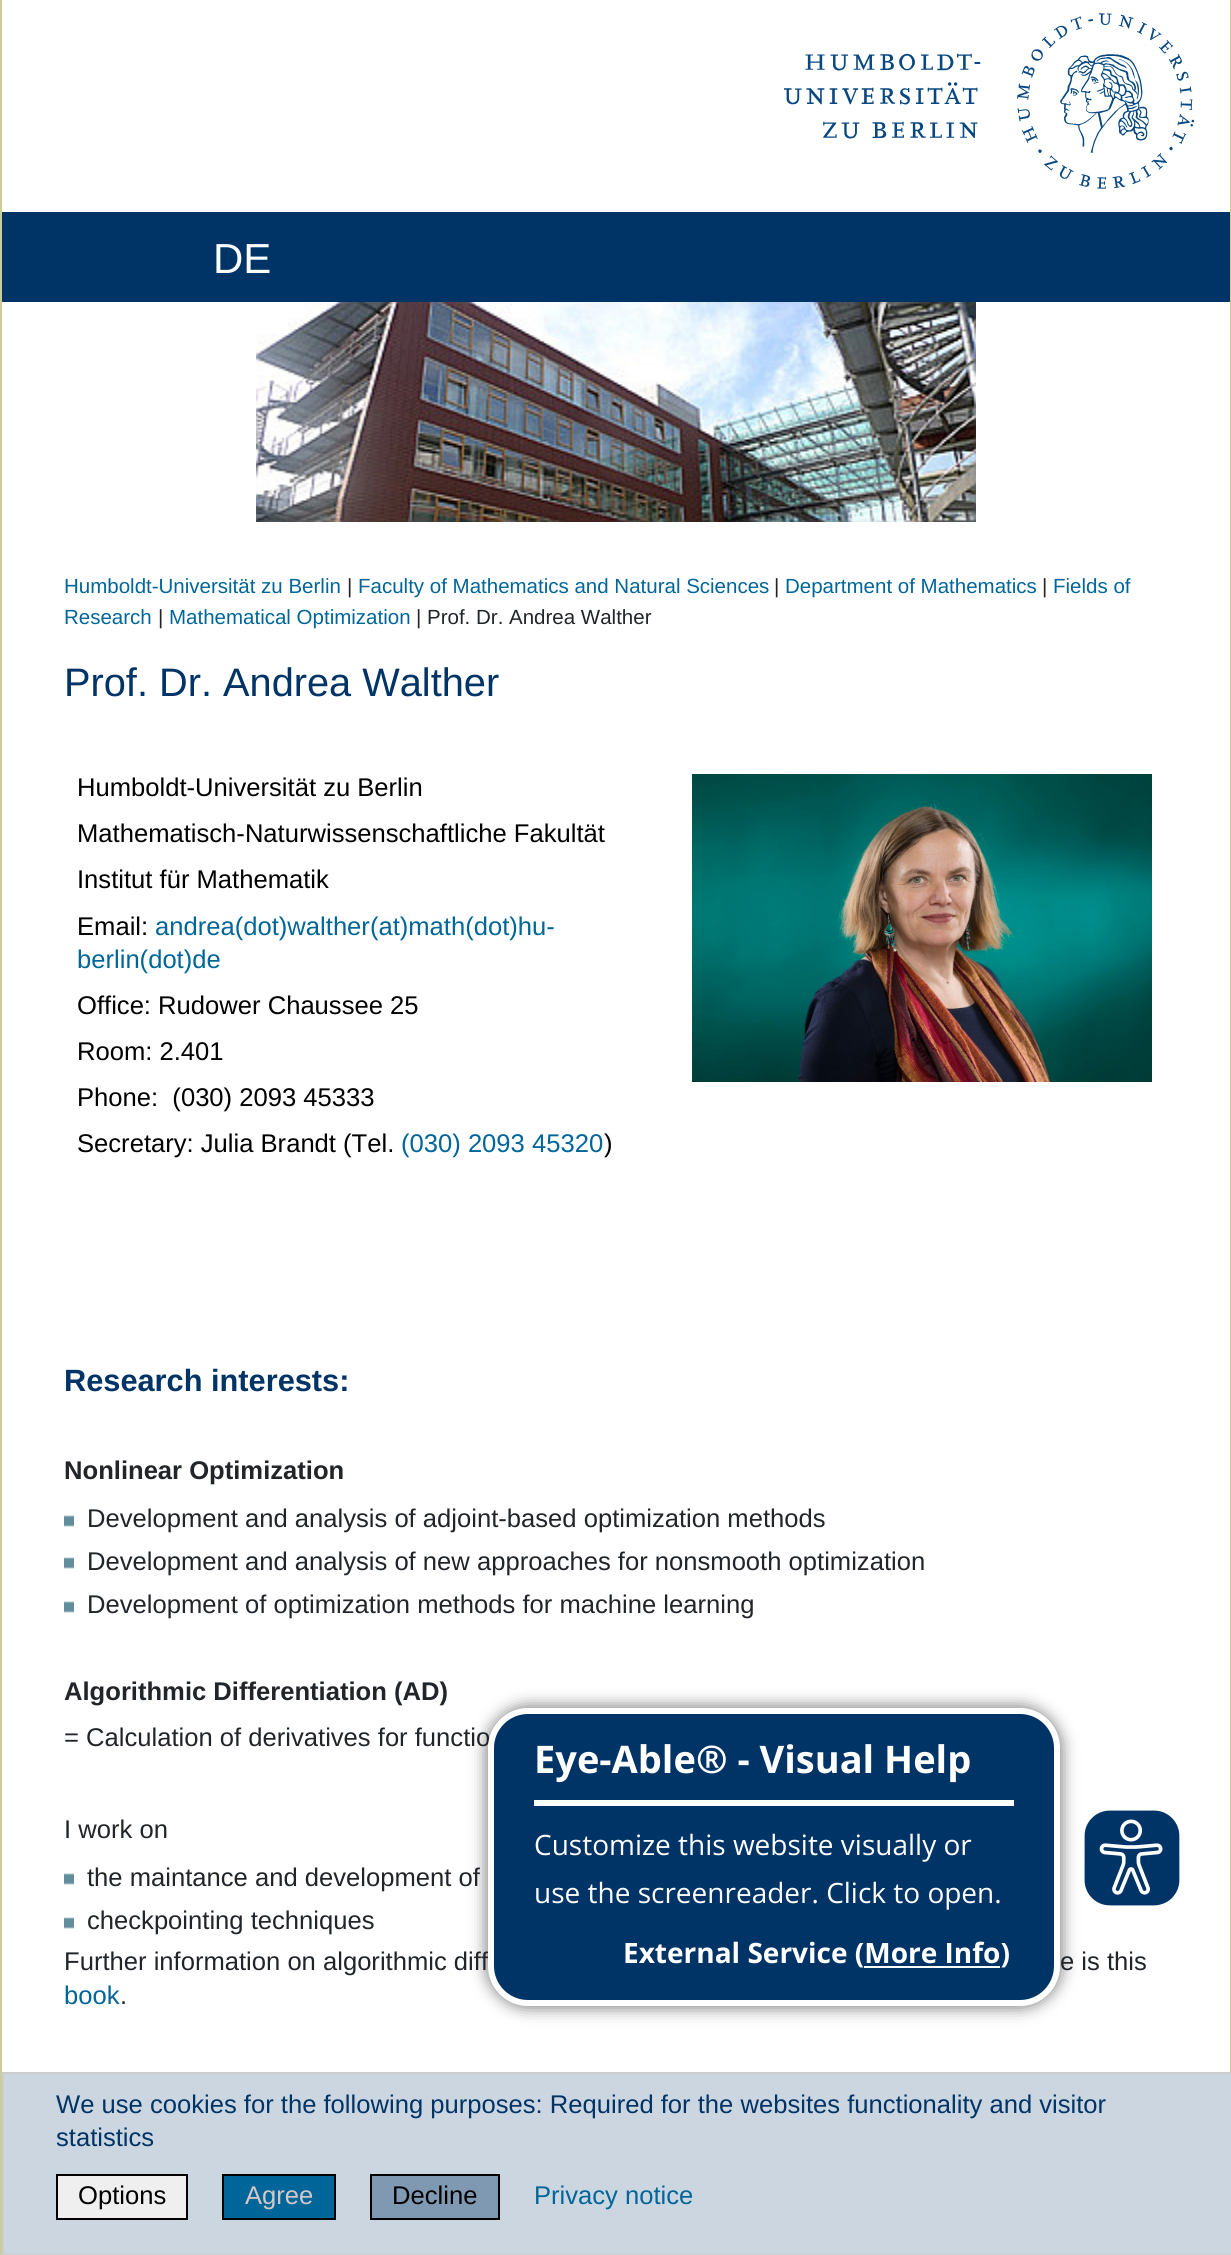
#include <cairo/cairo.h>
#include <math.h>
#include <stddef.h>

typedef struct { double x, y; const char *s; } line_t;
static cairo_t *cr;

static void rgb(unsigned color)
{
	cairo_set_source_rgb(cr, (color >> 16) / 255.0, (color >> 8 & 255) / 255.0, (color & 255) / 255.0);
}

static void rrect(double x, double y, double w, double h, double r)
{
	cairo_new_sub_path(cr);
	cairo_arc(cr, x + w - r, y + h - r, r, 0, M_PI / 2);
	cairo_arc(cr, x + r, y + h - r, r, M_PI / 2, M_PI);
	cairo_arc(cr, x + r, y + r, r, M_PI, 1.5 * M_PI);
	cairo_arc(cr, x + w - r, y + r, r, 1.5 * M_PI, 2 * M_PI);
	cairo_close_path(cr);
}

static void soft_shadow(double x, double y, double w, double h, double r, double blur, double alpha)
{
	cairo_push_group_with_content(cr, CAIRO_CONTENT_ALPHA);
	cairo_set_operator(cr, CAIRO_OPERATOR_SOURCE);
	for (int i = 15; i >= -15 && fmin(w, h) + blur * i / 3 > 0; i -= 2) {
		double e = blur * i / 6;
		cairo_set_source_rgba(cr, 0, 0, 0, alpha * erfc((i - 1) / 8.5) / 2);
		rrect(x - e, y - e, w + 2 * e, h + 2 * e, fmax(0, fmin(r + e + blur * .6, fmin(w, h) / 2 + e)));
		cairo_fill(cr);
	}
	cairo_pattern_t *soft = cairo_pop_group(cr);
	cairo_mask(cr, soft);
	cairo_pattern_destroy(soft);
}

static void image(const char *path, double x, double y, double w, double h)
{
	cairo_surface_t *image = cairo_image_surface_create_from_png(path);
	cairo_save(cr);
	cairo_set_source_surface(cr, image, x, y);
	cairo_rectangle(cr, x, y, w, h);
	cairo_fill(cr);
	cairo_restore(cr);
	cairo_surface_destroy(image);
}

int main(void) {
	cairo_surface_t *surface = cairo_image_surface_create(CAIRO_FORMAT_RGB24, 1231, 2255);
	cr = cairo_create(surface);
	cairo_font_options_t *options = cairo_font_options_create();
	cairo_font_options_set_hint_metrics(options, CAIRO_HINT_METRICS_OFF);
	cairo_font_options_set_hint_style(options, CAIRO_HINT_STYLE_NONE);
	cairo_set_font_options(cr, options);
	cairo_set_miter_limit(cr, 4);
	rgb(0xffffff);
	cairo_paint(cr);
	image("img/1.png", 784, 13, 411, 176);
	rgb(0x003366);
	cairo_rectangle(cr, 2, 212, 1228, 90);
	cairo_fill(cr);
	image("img/2.png", 256, 302, 720, 220);
	rgb(0xcccc99);
	cairo_rectangle(cr, 1230, 0, 1, 2072);
	cairo_fill(cr);
	cairo_rectangle(cr, 0, 0, 2, 2255);
	cairo_fill(cr);
	image("img/3.png", 692, 774, 460, 308);
	image("img/4.png", 64, 1515, 10, 12);
	image("img/4.png", 64, 1557, 10, 12);
	image("img/4.png", 64, 1601, 10, 12);
	image("img/4.png", 64, 1873, 10, 12);
	image("img/4.png", 64, 1917, 10, 12);
	rgb(0x000000);
	soft_shadow(486, 1706, 576, 302, 42, 8, 0.5);
	image("img/5.png", 1084, 1810, 96, 96);
	rgb(0xccd6e0);
	cairo_rectangle(cr, 3, 2073, 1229, 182);
	cairo_fill_preserve(cr);
	rgb(0xcccccc);
	cairo_stroke(cr);
	rgb(0xefefef);
	cairo_rectangle(cr, 57, 2175, 130, 44);
	cairo_fill_preserve(cr);
	rgb(0x000000);
	cairo_stroke(cr);
	rgb(0x006699);
	cairo_rectangle(cr, 223, 2175, 112, 44);
	cairo_fill_preserve(cr);
	rgb(0x000000);
	cairo_stroke(cr);
	rgb(0x8099b2);
	cairo_rectangle(cr, 371, 2175, 128, 44);
	cairo_fill_preserve(cr);
	rgb(0x000000);
	cairo_stroke(cr);
	cairo_select_font_face(cr, "Liberation Sans", CAIRO_FONT_SLANT_NORMAL, CAIRO_FONT_WEIGHT_NORMAL);
	cairo_set_font_size(cr, 42);
	rgb(0xffffff);
	cairo_move_to(cr, 213, 273);
	cairo_show_text(cr, "DE");
	cairo_set_font_size(cr, 20.5);
	rgb(0x006699);
	cairo_move_to(cr, 64, 593);
	cairo_show_text(cr, "Humboldt-Universität zu Berlin");
	rgb(0x212529);
	cairo_move_to(cr, 347, 593);
	cairo_show_text(cr, "|");
	rgb(0x006699);
	cairo_move_to(cr, 358, 593);
	cairo_show_text(cr, "Faculty of Mathematics and Natural Sciences");
	rgb(0x212529);
	cairo_move_to(cr, 774, 593);
	cairo_show_text(cr, "|");
	rgb(0x006699);
	cairo_move_to(cr, 785, 593);
	cairo_show_text(cr, "Department of Mathematics");
	rgb(0x212529);
	cairo_move_to(cr, 1042, 593);
	cairo_show_text(cr, "|");
	rgb(0x006699);
	cairo_move_to(cr, 1053, 593);
	cairo_show_text(cr, "Fields of");
	cairo_move_to(cr, 64, 624);
	cairo_show_text(cr, "Research");
	rgb(0x212529);
	cairo_move_to(cr, 158, 624);
	cairo_show_text(cr, "|");
	rgb(0x006699);
	cairo_move_to(cr, 169, 624);
	cairo_show_text(cr, "Mathematical Optimization");
	rgb(0x212529);
	cairo_move_to(cr, 416, 624);
	cairo_show_text(cr, "| Prof. Dr. Andrea Walther");
	cairo_set_font_size(cr, 39.75);
	rgb(0x003366);
	cairo_move_to(cr, 64, 696);
	cairo_show_text(cr, "Prof. Dr. Andrea Walther");
	cairo_set_font_size(cr, 25.6);
	rgb(0x000000);
	{
		static const line_t items[] = {
			{77, 796, "Humboldt-Universität zu Berlin"},
			{77, 842, "Mathematisch-Naturwissenschaftliche Fakultät"},
			{77, 888, "Institut für Mathematik"},
			{77, 935, "Email:"},
		};
		for (size_t i = 0; i < sizeof items / sizeof *items; i++) {
			cairo_move_to(cr, items[i].x, items[i].y);
			cairo_show_text(cr, items[i].s);
		}
	}
	rgb(0x006699);
	cairo_move_to(cr, 155, 935);
	cairo_show_text(cr, "andrea(dot)walther(at)math(dot)hu-");
	cairo_move_to(cr, 77, 968);
	cairo_show_text(cr, "berlin(dot)de");
	rgb(0x000000);
	{
		static const line_t items[] = {
			{77, 1014, "Office: Rudower Chaussee 25"},
			{77, 1060, "Room: 2.401"},
			{77, 1106, "Phone:  (030) 2093 45333"},
			{77, 1152, "Secretary: Julia Brandt (Tel."},
		};
		for (size_t i = 0; i < sizeof items / sizeof *items; i++) {
			cairo_move_to(cr, items[i].x, items[i].y);
			cairo_show_text(cr, items[i].s);
		}
	}
	rgb(0x006699);
	cairo_move_to(cr, 401, 1152);
	cairo_show_text(cr, "(030) 2093 45320");
	rgb(0x000000);
	cairo_move_to(cr, 604, 1152);
	cairo_show_text(cr, ")");
	cairo_select_font_face(cr, "Liberation Sans", CAIRO_FONT_SLANT_NORMAL, CAIRO_FONT_WEIGHT_BOLD);
	cairo_set_font_size(cr, 30.75);
	rgb(0x003366);
	cairo_move_to(cr, 64, 1391);
	cairo_show_text(cr, "Research interests:");
	cairo_set_font_size(cr, 25.6);
	rgb(0x212529);
	cairo_move_to(cr, 64, 1479);
	cairo_show_text(cr, "Nonlinear Optimization");
	cairo_select_font_face(cr, "Liberation Sans", CAIRO_FONT_SLANT_NORMAL, CAIRO_FONT_WEIGHT_NORMAL);
	{
		static const line_t items[] = {
			{87, 1527, "Development and analysis of adjoint-based optimization methods"},
			{87, 1570, "Development and analysis of new approaches for nonsmooth optimization"},
			{87, 1613, "Development of optimization methods for machine learning"},
		};
		for (size_t i = 0; i < sizeof items / sizeof *items; i++) {
			cairo_move_to(cr, items[i].x, items[i].y);
			cairo_show_text(cr, items[i].s);
		}
	}
	cairo_select_font_face(cr, "Liberation Sans", CAIRO_FONT_SLANT_NORMAL, CAIRO_FONT_WEIGHT_BOLD);
	cairo_move_to(cr, 64, 1700);
	cairo_show_text(cr, "Algorithmic Differentiation (AD)");
	cairo_select_font_face(cr, "Liberation Sans", CAIRO_FONT_SLANT_NORMAL, CAIRO_FONT_WEIGHT_NORMAL);
	{
		static const line_t items[] = {
			{64, 1746, "= Calculation of derivatives for functio"},
			{64, 1838, "I work on"},
			{87, 1886, "the maintance and development of"},
			{87, 1929, "checkpointing techniques"},
			{64, 1970, "Further information on algorithmic diff"},
			{1060, 1970, "e is this"},
		};
		for (size_t i = 0; i < sizeof items / sizeof *items; i++) {
			cairo_move_to(cr, items[i].x, items[i].y);
			cairo_show_text(cr, items[i].s);
		}
	}
	rgb(0x006699);
	cairo_move_to(cr, 64, 2004);
	cairo_show_text(cr, "book");
	rgb(0x212529);
	cairo_move_to(cr, 120, 2004);
	cairo_show_text(cr, ".");
	rgb(0x003366);
	rrect(491, 1711, 566, 292, 37);
	cairo_fill_preserve(cr);
	rgb(0xffffff);
	cairo_set_line_width(cr, 6);
	cairo_stroke(cr);
	cairo_rectangle(cr, 534, 1800, 480, 6);
	cairo_fill(cr);
	cairo_select_font_face(cr, "Open Sans", CAIRO_FONT_SLANT_NORMAL, CAIRO_FONT_WEIGHT_BOLD);
	cairo_set_font_size(cr, 38);
	cairo_move_to(cr, 534, 1773);
	cairo_show_text(cr, "Eye-Able® - Visual Help");
	cairo_select_font_face(cr, "Open Sans", CAIRO_FONT_SLANT_NORMAL, CAIRO_FONT_WEIGHT_NORMAL);
	cairo_set_font_size(cr, 28);
	cairo_move_to(cr, 534, 1855);
	cairo_show_text(cr, "Customize this website visually or");
	cairo_move_to(cr, 534, 1903);
	cairo_show_text(cr, "use the screenreader. Click to open.");
	cairo_select_font_face(cr, "Open Sans", CAIRO_FONT_SLANT_NORMAL, CAIRO_FONT_WEIGHT_BOLD);
	cairo_move_to(cr, 623, 1963);
	cairo_show_text(cr, "External Service (More Info)");
	cairo_rectangle(cr, 864, 1966, 136, 2);
	cairo_fill(cr);
	cairo_select_font_face(cr, "Liberation Sans", CAIRO_FONT_SLANT_NORMAL, CAIRO_FONT_WEIGHT_NORMAL);
	cairo_set_font_size(cr, 25.6);
	rgb(0x003366);
	cairo_move_to(cr, 56, 2113);
	cairo_show_text(cr, "We use cookies for the following purposes: Required for the websites functionality and visitor");
	cairo_move_to(cr, 56, 2146);
	cairo_show_text(cr, "statistics");
	rgb(0x000000);
	cairo_move_to(cr, 78, 2204);
	cairo_show_text(cr, "Options");
	rgb(0xd5c7c7);
	cairo_move_to(cr, 245, 2204);
	cairo_show_text(cr, "Agree");
	rgb(0x000000);
	cairo_move_to(cr, 392, 2204);
	cairo_show_text(cr, "Decline");
	rgb(0x006699);
	cairo_move_to(cr, 534, 2204);
	cairo_show_text(cr, "Privacy notice");
	cairo_surface_write_to_png(surface, "page.png");
	cairo_font_options_destroy(options);
	cairo_destroy(cr);
	cairo_surface_destroy(surface);
	return 0;
}
